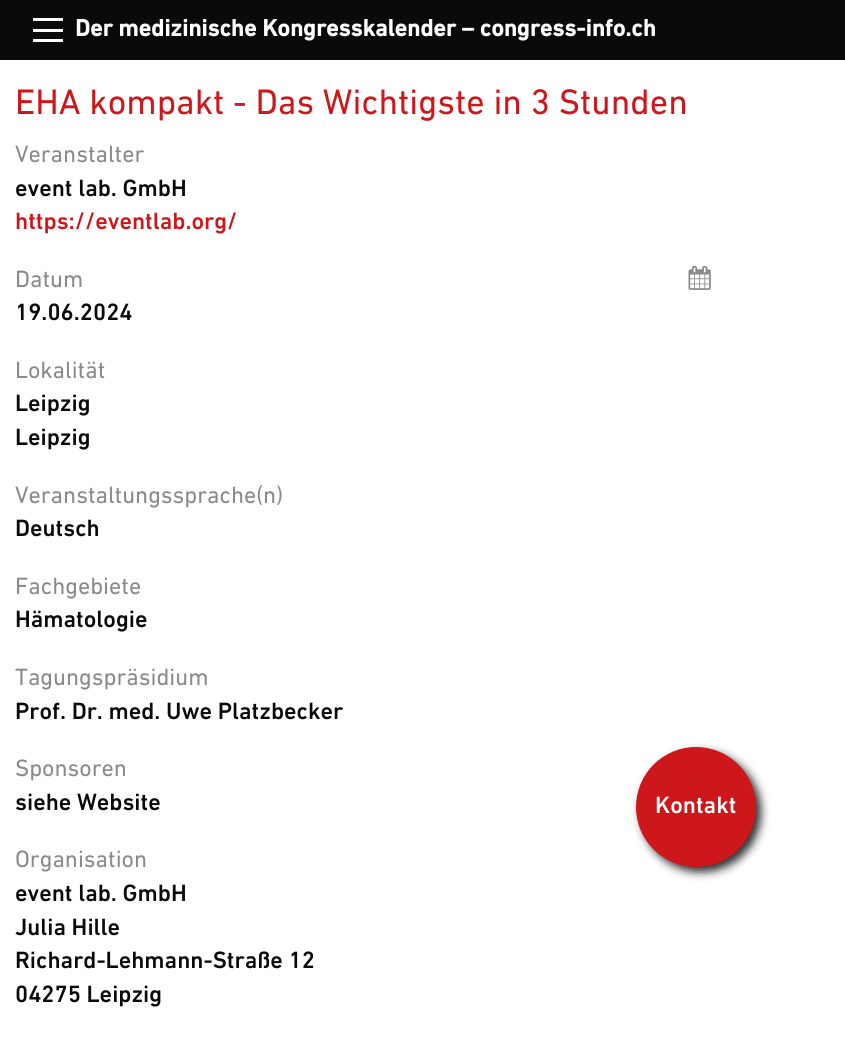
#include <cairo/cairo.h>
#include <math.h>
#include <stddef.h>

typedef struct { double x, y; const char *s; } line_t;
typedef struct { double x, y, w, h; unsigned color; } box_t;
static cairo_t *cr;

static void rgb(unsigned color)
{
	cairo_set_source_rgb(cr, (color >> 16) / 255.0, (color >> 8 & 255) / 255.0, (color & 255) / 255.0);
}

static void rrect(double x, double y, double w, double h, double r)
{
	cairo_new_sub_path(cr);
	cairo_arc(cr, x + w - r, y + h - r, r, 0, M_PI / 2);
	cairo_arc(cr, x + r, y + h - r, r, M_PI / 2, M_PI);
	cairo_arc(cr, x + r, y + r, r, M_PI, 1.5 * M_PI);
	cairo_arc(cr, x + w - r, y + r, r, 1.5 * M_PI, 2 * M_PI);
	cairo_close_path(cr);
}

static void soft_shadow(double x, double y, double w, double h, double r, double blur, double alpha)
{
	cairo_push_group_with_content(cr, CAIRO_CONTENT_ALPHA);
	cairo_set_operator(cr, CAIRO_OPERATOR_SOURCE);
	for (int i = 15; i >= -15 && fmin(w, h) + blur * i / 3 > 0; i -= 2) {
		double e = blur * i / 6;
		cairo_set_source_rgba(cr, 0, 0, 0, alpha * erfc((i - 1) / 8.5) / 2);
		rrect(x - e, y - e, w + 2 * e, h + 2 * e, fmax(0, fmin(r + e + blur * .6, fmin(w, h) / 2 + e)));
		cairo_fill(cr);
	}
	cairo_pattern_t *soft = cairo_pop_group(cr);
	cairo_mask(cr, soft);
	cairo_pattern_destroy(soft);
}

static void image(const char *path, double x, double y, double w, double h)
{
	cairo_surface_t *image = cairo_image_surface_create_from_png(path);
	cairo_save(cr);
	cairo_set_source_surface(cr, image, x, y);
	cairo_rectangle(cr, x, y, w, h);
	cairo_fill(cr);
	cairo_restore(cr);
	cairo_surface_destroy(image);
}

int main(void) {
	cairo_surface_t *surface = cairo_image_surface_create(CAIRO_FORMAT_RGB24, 845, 1047);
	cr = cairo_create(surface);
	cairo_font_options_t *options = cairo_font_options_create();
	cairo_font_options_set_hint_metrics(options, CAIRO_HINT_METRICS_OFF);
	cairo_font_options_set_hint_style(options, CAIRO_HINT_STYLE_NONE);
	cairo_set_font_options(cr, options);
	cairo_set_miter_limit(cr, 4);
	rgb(0xffffff);
	cairo_paint(cr);
	{
		static const box_t items[] = {
			{0, 0, 845, 60, 0x0a0a0a},
			{33, 39, 30, 3, 0xfefefe},
			{33, 29, 30, 3, 0xfefefe},
			{33, 18, 30, 3, 0xfefefe},
		};
		for (size_t i = 0; i < sizeof items / sizeof *items; i++) {
			rgb(items[i].color);
			cairo_rectangle(cr, items[i].x, items[i].y, items[i].w, items[i].h);
			cairo_fill(cr);
		}
	}
	image("img/1.png", 688, 265, 23, 25);
	rgb(0x303030);
	soft_shadow(641, 752, 120, 120, 60, 4.5, 1);
	rgb(0xcd171a);
	cairo_arc(cr, 696, 807, 60, 0, 2 * M_PI);
	cairo_fill(cr);
	cairo_select_font_face(cr, "DIN", CAIRO_FONT_SLANT_NORMAL, CAIRO_FONT_WEIGHT_BOLD);
	cairo_set_font_size(cr, 24);
	rgb(0xfefefe);
	cairo_move_to(cr, 75, 36);
	cairo_show_text(cr, "Der medizinische Kongresskalender – congress-info.ch");
	cairo_select_font_face(cr, "DIN", CAIRO_FONT_SLANT_NORMAL, CAIRO_FONT_WEIGHT_NORMAL);
	cairo_set_font_size(cr, 36);
	rgb(0xcd171a);
	cairo_move_to(cr, 15, 114);
	cairo_show_text(cr, "EHA kompakt - Das Wichtigste in 3 Stunden");
	cairo_set_font_size(cr, 24);
	rgb(0x8a8a8a);
	cairo_move_to(cr, 15, 162);
	cairo_show_text(cr, "Veranstalter");
	cairo_select_font_face(cr, "DIN Medium", CAIRO_FONT_SLANT_NORMAL, CAIRO_FONT_WEIGHT_NORMAL);
	rgb(0x0a0a0a);
	cairo_move_to(cr, 15, 196);
	cairo_show_text(cr, "event lab. GmbH");
	rgb(0xcd171a);
	cairo_move_to(cr, 15, 229);
	cairo_show_text(cr, "https://eventlab.org/");
	cairo_select_font_face(cr, "DIN", CAIRO_FONT_SLANT_NORMAL, CAIRO_FONT_WEIGHT_NORMAL);
	rgb(0x8a8a8a);
	cairo_move_to(cr, 15, 287);
	cairo_show_text(cr, "Datum");
	cairo_select_font_face(cr, "DIN Medium", CAIRO_FONT_SLANT_NORMAL, CAIRO_FONT_WEIGHT_NORMAL);
	rgb(0x0a0a0a);
	cairo_move_to(cr, 15, 320);
	cairo_show_text(cr, "19.06.2024");
	cairo_select_font_face(cr, "DIN", CAIRO_FONT_SLANT_NORMAL, CAIRO_FONT_WEIGHT_NORMAL);
	rgb(0x8a8a8a);
	cairo_move_to(cr, 15, 378);
	cairo_show_text(cr, "Lokalität");
	cairo_select_font_face(cr, "DIN Medium", CAIRO_FONT_SLANT_NORMAL, CAIRO_FONT_WEIGHT_NORMAL);
	rgb(0x0a0a0a);
	cairo_move_to(cr, 15, 411);
	cairo_show_text(cr, "Leipzig");
	cairo_move_to(cr, 15, 445);
	cairo_show_text(cr, "Leipzig");
	cairo_select_font_face(cr, "DIN", CAIRO_FONT_SLANT_NORMAL, CAIRO_FONT_WEIGHT_NORMAL);
	rgb(0x8a8a8a);
	cairo_move_to(cr, 15, 503);
	cairo_show_text(cr, "Veranstaltungssprache(n)");
	cairo_select_font_face(cr, "DIN Medium", CAIRO_FONT_SLANT_NORMAL, CAIRO_FONT_WEIGHT_NORMAL);
	rgb(0x0a0a0a);
	cairo_move_to(cr, 15, 536);
	cairo_show_text(cr, "Deutsch");
	cairo_select_font_face(cr, "DIN", CAIRO_FONT_SLANT_NORMAL, CAIRO_FONT_WEIGHT_NORMAL);
	rgb(0x8a8a8a);
	cairo_move_to(cr, 15, 594);
	cairo_show_text(cr, "Fachgebiete");
	cairo_select_font_face(cr, "DIN Medium", CAIRO_FONT_SLANT_NORMAL, CAIRO_FONT_WEIGHT_NORMAL);
	rgb(0x0a0a0a);
	cairo_move_to(cr, 15, 627);
	cairo_show_text(cr, "Hämatologie");
	cairo_select_font_face(cr, "DIN", CAIRO_FONT_SLANT_NORMAL, CAIRO_FONT_WEIGHT_NORMAL);
	rgb(0x8a8a8a);
	cairo_move_to(cr, 15, 685);
	cairo_show_text(cr, "Tagungspräsidium");
	cairo_select_font_face(cr, "DIN Medium", CAIRO_FONT_SLANT_NORMAL, CAIRO_FONT_WEIGHT_NORMAL);
	rgb(0x0a0a0a);
	cairo_move_to(cr, 15, 719);
	cairo_show_text(cr, "Prof. Dr. med. Uwe Platzbecker");
	cairo_select_font_face(cr, "DIN", CAIRO_FONT_SLANT_NORMAL, CAIRO_FONT_WEIGHT_NORMAL);
	rgb(0x8a8a8a);
	cairo_move_to(cr, 15, 776);
	cairo_show_text(cr, "Sponsoren");
	cairo_select_font_face(cr, "DIN Medium", CAIRO_FONT_SLANT_NORMAL, CAIRO_FONT_WEIGHT_NORMAL);
	rgb(0x0a0a0a);
	cairo_move_to(cr, 15, 810);
	cairo_show_text(cr, "siehe Website");
	cairo_select_font_face(cr, "DIN", CAIRO_FONT_SLANT_NORMAL, CAIRO_FONT_WEIGHT_NORMAL);
	rgb(0x8a8a8a);
	cairo_move_to(cr, 15, 867);
	cairo_show_text(cr, "Organisation");
	cairo_select_font_face(cr, "DIN Medium", CAIRO_FONT_SLANT_NORMAL, CAIRO_FONT_WEIGHT_NORMAL);
	rgb(0x0a0a0a);
	{
		static const line_t items[] = {
			{15, 901, "event lab. GmbH"},
			{15, 935, "Julia Hille"},
			{15, 968, "Richard-Lehmann-Straße 12"},
			{15, 1002, "04275 Leipzig"},
		};
		for (size_t i = 0; i < sizeof items / sizeof *items; i++) {
			cairo_move_to(cr, items[i].x, items[i].y);
			cairo_show_text(cr, items[i].s);
		}
	}
	rgb(0xfefefe);
	cairo_move_to(cr, 655, 813);
	cairo_show_text(cr, "Kontakt");
	cairo_surface_write_to_png(surface, "page.png");
	cairo_font_options_destroy(options);
	cairo_destroy(cr);
	cairo_surface_destroy(surface);
	return 0;
}
